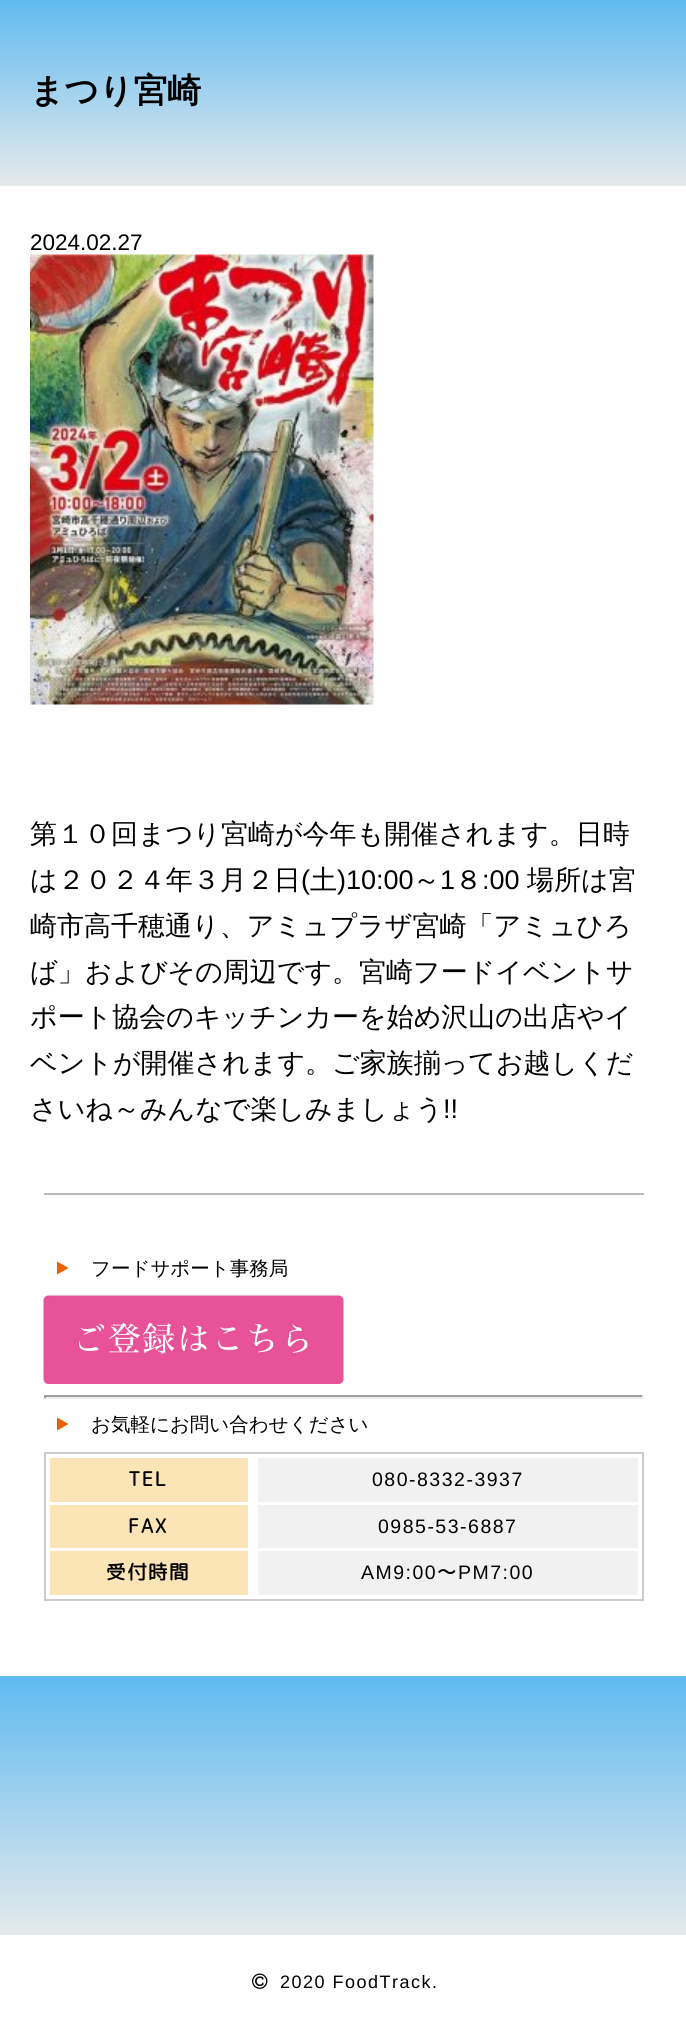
#include <cairo/cairo.h>
#include <math.h>
#include <stddef.h>

typedef struct { double x, y; const char *s; } line_t;
typedef struct { double x, y, w, h; unsigned color; } box_t;
static cairo_t *cr;

static void rgb(unsigned color)
{
	cairo_set_source_rgb(cr, (color >> 16) / 255.0, (color >> 8 & 255) / 255.0, (color & 255) / 255.0);
}

static void tracked(double x, double y, const char *s, double letter, double word)
{
	cairo_move_to(cr, x, y);
	while (*s) {
		char ch[5] = {0};
		int n = 0;
		do ch[n++] = *s++; while ((*s & 0xC0) == 0x80);
		cairo_show_text(cr, ch);
		cairo_rel_move_to(cr, letter + word * (*ch == ' '), 0);
	}
}

static void image(const char *path, double x, double y, double w, double h)
{
	cairo_surface_t *image = cairo_image_surface_create_from_png(path);
	cairo_save(cr);
	cairo_set_source_surface(cr, image, x, y);
	cairo_rectangle(cr, x, y, w, h);
	cairo_fill(cr);
	cairo_restore(cr);
	cairo_surface_destroy(image);
}

int main(void) {
	cairo_surface_t *surface = cairo_image_surface_create(CAIRO_FORMAT_RGB24, 686, 2042);
	cr = cairo_create(surface);
	cairo_font_options_t *options = cairo_font_options_create();
	cairo_font_options_set_hint_metrics(options, CAIRO_HINT_METRICS_OFF);
	cairo_font_options_set_hint_style(options, CAIRO_HINT_STYLE_NONE);
	cairo_set_font_options(cr, options);
	cairo_set_miter_limit(cr, 4);
	cairo_pattern_t *gradient;
	rgb(0xffffff);
	cairo_paint(cr);
	gradient = cairo_pattern_create_linear(344, -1.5, 344, 186);
	cairo_pattern_add_color_stop_rgba(gradient, 0, 0.376, 0.729, 0.941, 1);
	cairo_pattern_add_color_stop_rgba(gradient, 1, 0.898, 0.918, 0.925, 1);
	cairo_set_source(cr, gradient);
	cairo_pattern_destroy(gradient);
	cairo_rectangle(cr, 0, 0, 686, 186);
	cairo_fill(cr);
	image("img/1.png", 30, 254, 344, 451);
	rgb(0xbbbbbb);
	cairo_rectangle(cr, 44, 1193, 600, 2);
	cairo_fill(cr);
	rgb(0xec6002);
	cairo_new_path(cr);
	cairo_move_to(cr, 57, 1261.5);
	cairo_line_to(cr, 68.5, 1268);
	cairo_line_to(cr, 57, 1274.5);
	cairo_close_path(cr);
	cairo_fill(cr);
	image("img/2.png", 43, 1295, 301, 89);
	{
		static const box_t items[] = {
			{44, 1395, 600, 2, 0x9f9f9f},
			{642, 1395, 2, 3, 0xeeeeee},
			{44, 1397, 600, 2, 0xeeeeee},
			{44, 1395, 2, 3, 0x9f9f9f},
		};
		for (size_t i = 0; i < sizeof items / sizeof *items; i++) {
			rgb(items[i].color);
			cairo_rectangle(cr, items[i].x, items[i].y, items[i].w, items[i].h);
			cairo_fill(cr);
		}
	}
	rgb(0xec6002);
	cairo_new_path(cr);
	cairo_move_to(cr, 57, 1417.5);
	cairo_line_to(cr, 68.5, 1424);
	cairo_line_to(cr, 57, 1430.5);
	cairo_close_path(cr);
	cairo_fill(cr);
	cairo_rectangle(cr, 45, 1453, 598, 147);
	rgb(0xcccccc);
	cairo_stroke(cr);
	{
		static const box_t items[] = {
			{50, 1458, 198, 44, 0xfbe5b6},
			{258, 1458, 380, 44, 0xf1f1f1},
			{50, 1505, 198, 43, 0xfbe5b6},
			{258, 1505, 380, 43, 0xf1f1f1},
			{50, 1551, 198, 44, 0xfbe5b6},
			{258, 1551, 380, 44, 0xf1f1f1},
		};
		for (size_t i = 0; i < sizeof items / sizeof *items; i++) {
			rgb(items[i].color);
			cairo_rectangle(cr, items[i].x, items[i].y, items[i].w, items[i].h);
			cairo_fill(cr);
		}
	}
	gradient = cairo_pattern_create_linear(344, 1676, 344, 1935);
	cairo_pattern_add_color_stop_rgba(gradient, 0, 0.376, 0.729, 0.941, 1);
	cairo_pattern_add_color_stop_rgba(gradient, 1, 0.898, 0.918, 0.925, 1);
	cairo_set_source(cr, gradient);
	cairo_pattern_destroy(gradient);
	cairo_rectangle(cr, 0, 1676, 686, 259);
	cairo_fill(cr);
	image("img/3.png", 252, 1973, 16, 16);
	cairo_select_font_face(cr, "WenQuanYi Zen Hei", CAIRO_FONT_SLANT_NORMAL, CAIRO_FONT_WEIGHT_BOLD);
	cairo_set_font_size(cr, 33.75);
	rgb(0x000000);
	cairo_move_to(cr, 30, 102);
	cairo_show_text(cr, "まつり宮崎");
	cairo_select_font_face(cr, "Liberation Sans", CAIRO_FONT_SLANT_NORMAL, CAIRO_FONT_WEIGHT_NORMAL);
	cairo_set_font_size(cr, 22.5);
	cairo_move_to(cr, 30, 250);
	cairo_show_text(cr, "2024.02.27");
	cairo_select_font_face(cr, "WenQuanYi Zen Hei Medium", CAIRO_FONT_SLANT_NORMAL, CAIRO_FONT_WEIGHT_NORMAL);
	cairo_set_font_size(cr, 27);
	cairo_move_to(cr, 30, 843);
	cairo_show_text(cr, "第１０回まつり宮崎が今年も開催されます。日時");
	cairo_move_to(cr, 30, 889);
	cairo_show_text(cr, "は２０２４年３月２日");
	cairo_select_font_face(cr, "Liberation Sans", CAIRO_FONT_SLANT_NORMAL, CAIRO_FONT_WEIGHT_NORMAL);
	cairo_move_to(cr, 301, 889);
	cairo_show_text(cr, "(");
	cairo_select_font_face(cr, "WenQuanYi Zen Hei Medium", CAIRO_FONT_SLANT_NORMAL, CAIRO_FONT_WEIGHT_NORMAL);
	cairo_move_to(cr, 310, 889);
	cairo_show_text(cr, "土");
	cairo_select_font_face(cr, "Liberation Sans", CAIRO_FONT_SLANT_NORMAL, CAIRO_FONT_WEIGHT_NORMAL);
	cairo_move_to(cr, 337, 889);
	cairo_show_text(cr, ")10:00");
	cairo_select_font_face(cr, "WenQuanYi Zen Hei Medium", CAIRO_FONT_SLANT_NORMAL, CAIRO_FONT_WEIGHT_NORMAL);
	cairo_move_to(cr, 413, 889);
	cairo_show_text(cr, "～");
	cairo_select_font_face(cr, "Liberation Sans", CAIRO_FONT_SLANT_NORMAL, CAIRO_FONT_WEIGHT_NORMAL);
	cairo_move_to(cr, 440, 889);
	cairo_show_text(cr, "1");
	cairo_select_font_face(cr, "WenQuanYi Zen Hei Medium", CAIRO_FONT_SLANT_NORMAL, CAIRO_FONT_WEIGHT_NORMAL);
	cairo_move_to(cr, 455, 889);
	cairo_show_text(cr, "８");
	cairo_select_font_face(cr, "Liberation Sans", CAIRO_FONT_SLANT_NORMAL, CAIRO_FONT_WEIGHT_NORMAL);
	cairo_move_to(cr, 482, 889);
	cairo_show_text(cr, ":00");
	cairo_select_font_face(cr, "WenQuanYi Zen Hei Medium", CAIRO_FONT_SLANT_NORMAL, CAIRO_FONT_WEIGHT_NORMAL);
	{
		static const line_t items[] = {
			{527, 889, "場所は宮"},
			{30, 935, "崎市高千穂通り、アミュプラザ宮崎「アミュひろ"},
			{30, 981, "ば」およびその周辺です。宮崎フードイベントサ"},
			{30, 1026, "ポート協会のキッチンカーを始め沢山の出店やイ"},
			{30, 1072, "ベントが開催されます。ご家族揃ってお越しくだ"},
			{30, 1118, "さいね～みんなで楽しみましょう"},
		};
		for (size_t i = 0; i < sizeof items / sizeof *items; i++) {
			cairo_move_to(cr, items[i].x, items[i].y);
			cairo_show_text(cr, items[i].s);
		}
	}
	cairo_select_font_face(cr, "Liberation Sans", CAIRO_FONT_SLANT_NORMAL, CAIRO_FONT_WEIGHT_NORMAL);
	cairo_move_to(cr, 443, 1118);
	cairo_show_text(cr, "!!");
	cairo_select_font_face(cr, "WenQuanYi Zen Hei Medium", CAIRO_FONT_SLANT_NORMAL, CAIRO_FONT_WEIGHT_NORMAL);
	cairo_set_font_size(cr, 19.5);
	cairo_move_to(cr, 91, 1275);
	cairo_show_text(cr, "フードサポート事務局");
	cairo_move_to(cr, 91, 1431);
	cairo_show_text(cr, "お気軽にお問い合わせください");
	cairo_select_font_face(cr, "Rounded Mplus 1c", CAIRO_FONT_SLANT_NORMAL, CAIRO_FONT_WEIGHT_BOLD);
	tracked(128, 1486, "TEL", 1.5, 0);
	cairo_select_font_face(cr, "Liberation Sans", CAIRO_FONT_SLANT_NORMAL, CAIRO_FONT_WEIGHT_NORMAL);
	tracked(372, 1486, "080-8332-3937", 1.5, 0);
	cairo_select_font_face(cr, "Rounded Mplus 1c", CAIRO_FONT_SLANT_NORMAL, CAIRO_FONT_WEIGHT_BOLD);
	tracked(128, 1533, "FAX", 1.5, 0);
	cairo_select_font_face(cr, "Liberation Sans", CAIRO_FONT_SLANT_NORMAL, CAIRO_FONT_WEIGHT_NORMAL);
	tracked(378, 1533, "0985-53-6887", 1.5, 0);
	cairo_select_font_face(cr, "Rounded Mplus 1c", CAIRO_FONT_SLANT_NORMAL, CAIRO_FONT_WEIGHT_BOLD);
	tracked(106, 1579, "受付時間", 1.5, 0);
	cairo_select_font_face(cr, "Liberation Sans", CAIRO_FONT_SLANT_NORMAL, CAIRO_FONT_WEIGHT_NORMAL);
	tracked(361, 1579, "AM9:00", 1.5, 0);
	cairo_select_font_face(cr, "WenQuanYi Zen Hei Medium", CAIRO_FONT_SLANT_NORMAL, CAIRO_FONT_WEIGHT_NORMAL);
	tracked(437, 1579, "〜", 1.5, 0);
	cairo_select_font_face(cr, "Liberation Sans", CAIRO_FONT_SLANT_NORMAL, CAIRO_FONT_WEIGHT_NORMAL);
	tracked(458, 1579, "PM7:00", 1.5, 0);
	cairo_set_font_size(cr, 18);
	tracked(280, 1988, "2020 FoodTrack.", 1.5, 0);
	cairo_surface_write_to_png(surface, "page.png");
	cairo_font_options_destroy(options);
	cairo_destroy(cr);
	cairo_surface_destroy(surface);
	return 0;
}
